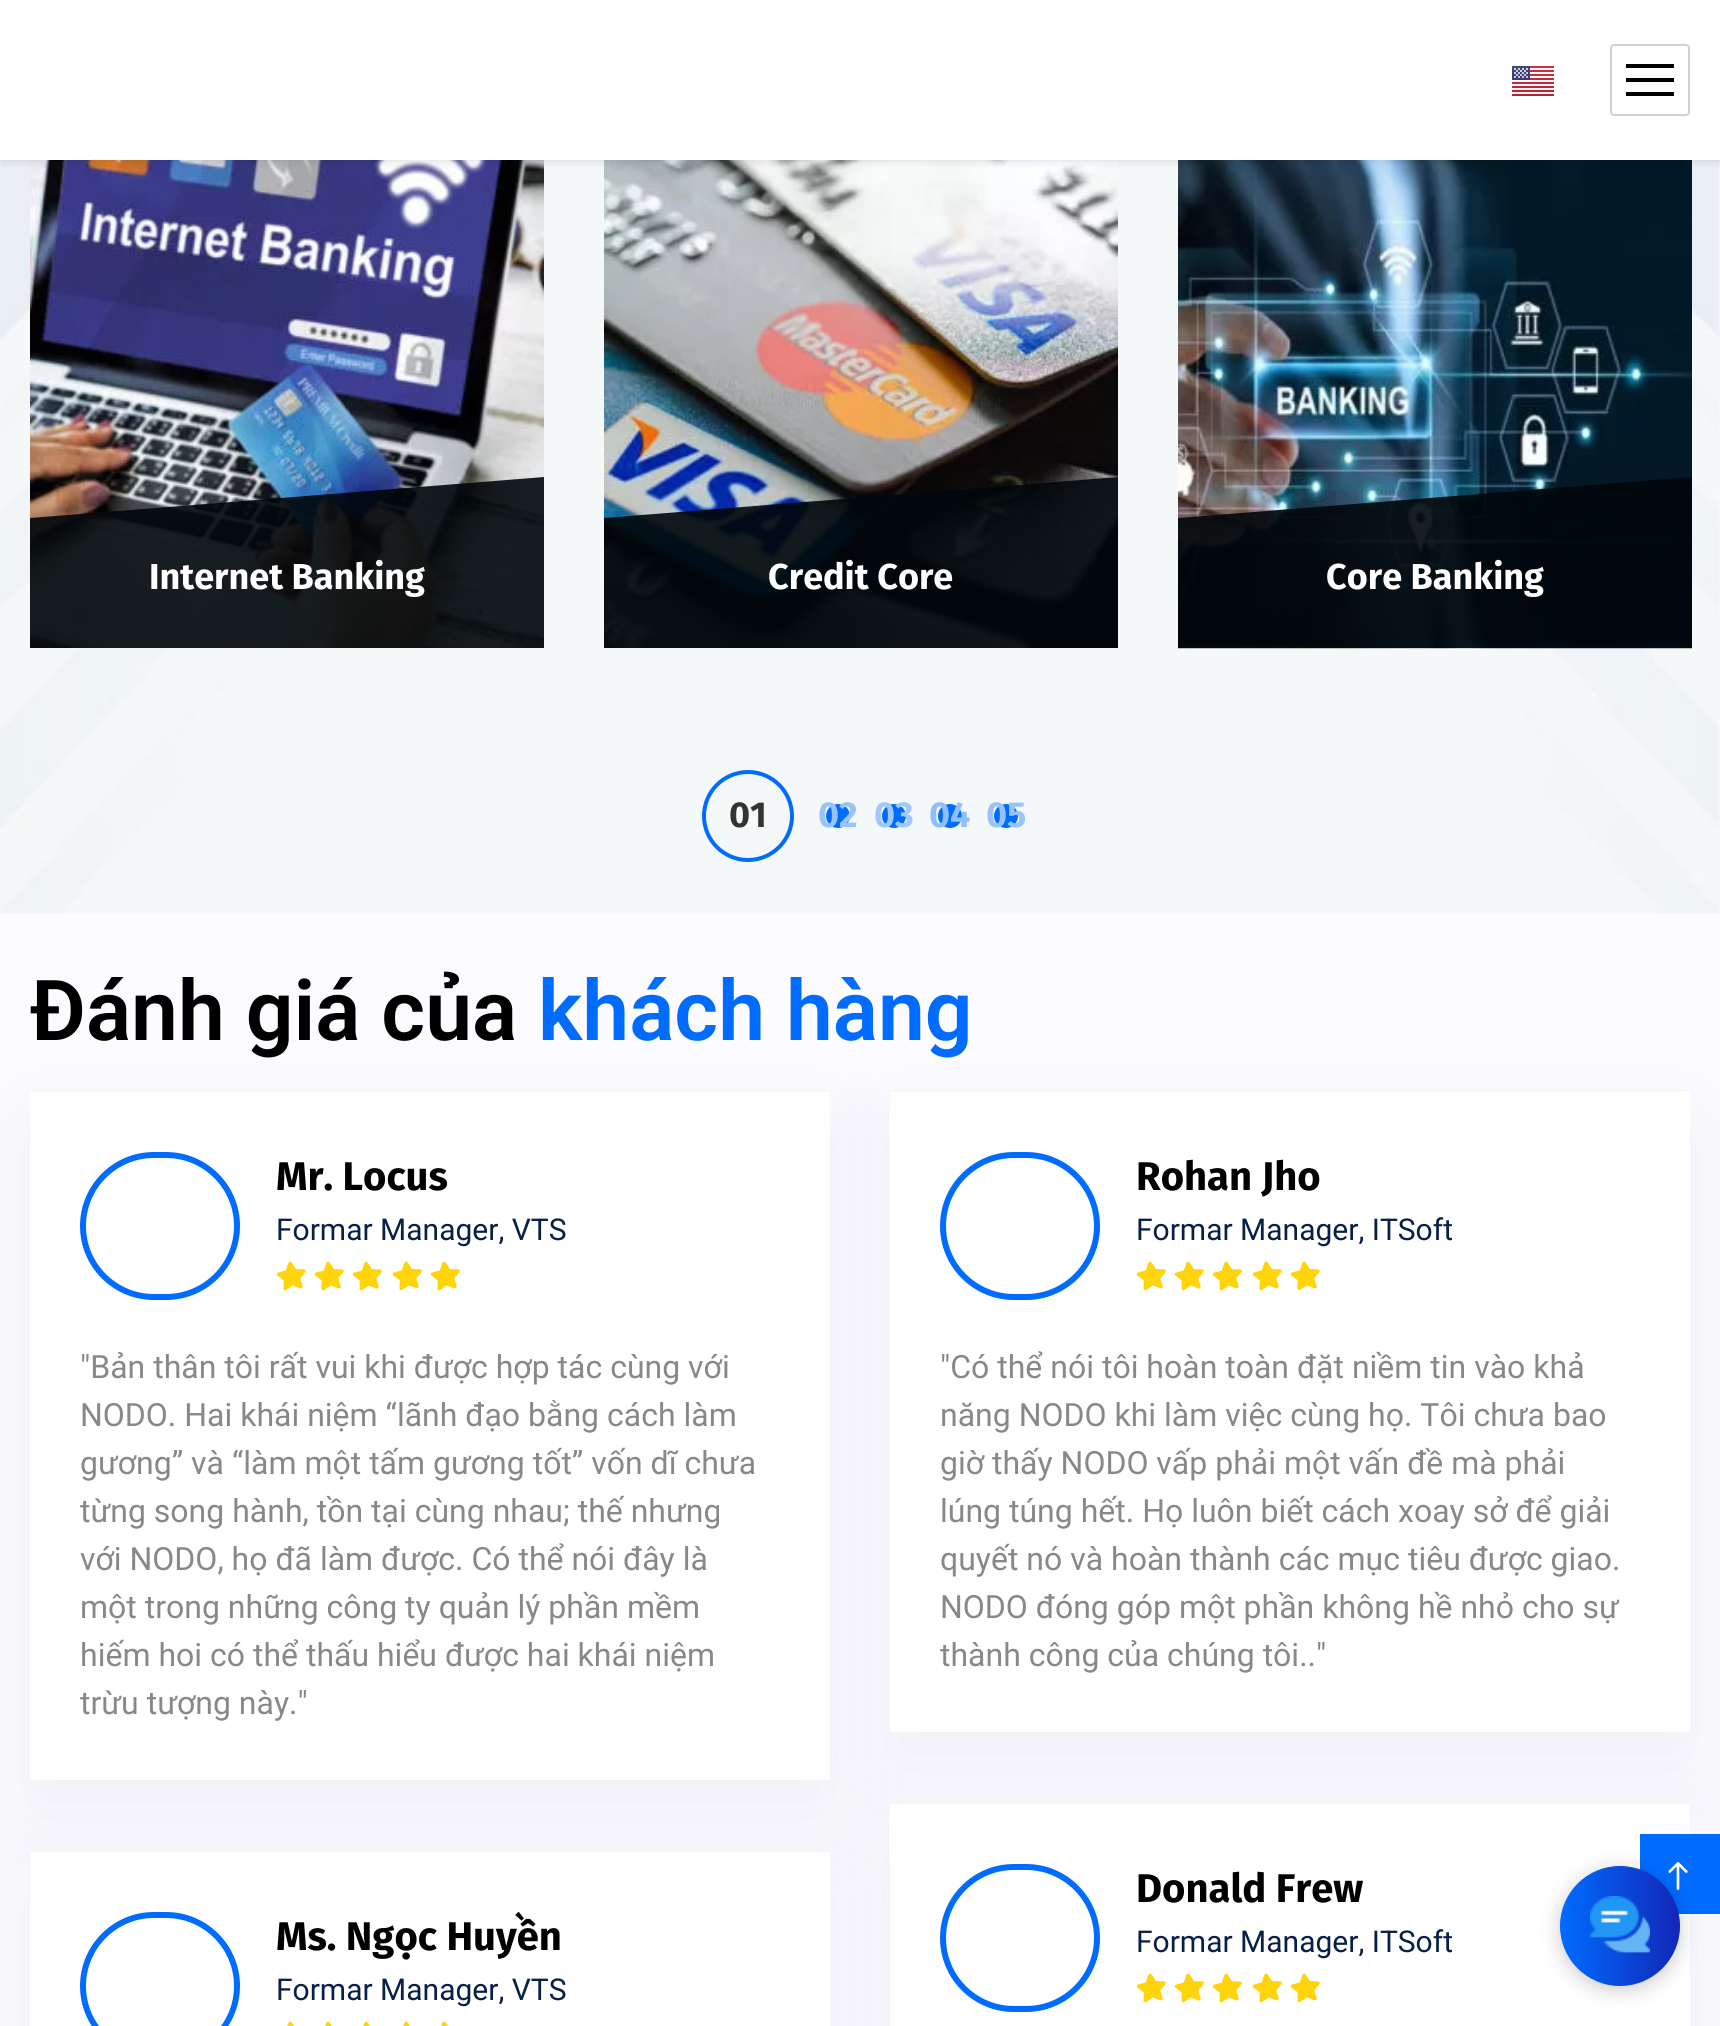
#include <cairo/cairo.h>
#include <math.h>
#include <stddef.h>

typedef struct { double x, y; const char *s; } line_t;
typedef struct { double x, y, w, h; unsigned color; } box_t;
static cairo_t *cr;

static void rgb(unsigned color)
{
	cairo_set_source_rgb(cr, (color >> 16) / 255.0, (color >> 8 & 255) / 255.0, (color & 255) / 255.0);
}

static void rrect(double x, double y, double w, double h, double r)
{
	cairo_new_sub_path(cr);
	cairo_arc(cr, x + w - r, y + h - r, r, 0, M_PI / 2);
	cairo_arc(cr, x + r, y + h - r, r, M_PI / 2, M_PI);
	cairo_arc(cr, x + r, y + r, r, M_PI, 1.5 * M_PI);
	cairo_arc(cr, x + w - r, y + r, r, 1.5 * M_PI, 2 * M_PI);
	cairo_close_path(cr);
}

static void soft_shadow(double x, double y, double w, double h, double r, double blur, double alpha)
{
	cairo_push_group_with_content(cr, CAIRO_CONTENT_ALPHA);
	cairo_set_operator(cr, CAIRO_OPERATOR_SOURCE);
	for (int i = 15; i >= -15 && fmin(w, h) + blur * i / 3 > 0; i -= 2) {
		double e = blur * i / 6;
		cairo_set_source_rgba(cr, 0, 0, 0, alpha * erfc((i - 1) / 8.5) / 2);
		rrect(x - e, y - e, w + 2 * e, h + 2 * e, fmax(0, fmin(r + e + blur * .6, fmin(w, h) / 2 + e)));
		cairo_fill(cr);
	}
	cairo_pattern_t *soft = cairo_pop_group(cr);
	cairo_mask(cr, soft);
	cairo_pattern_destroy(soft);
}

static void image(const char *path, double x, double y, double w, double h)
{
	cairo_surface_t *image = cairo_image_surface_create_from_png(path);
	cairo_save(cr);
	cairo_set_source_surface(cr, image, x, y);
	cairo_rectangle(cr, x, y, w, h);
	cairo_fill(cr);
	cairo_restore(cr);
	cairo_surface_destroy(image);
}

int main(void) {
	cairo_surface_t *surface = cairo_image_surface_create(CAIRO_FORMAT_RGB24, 1720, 2026);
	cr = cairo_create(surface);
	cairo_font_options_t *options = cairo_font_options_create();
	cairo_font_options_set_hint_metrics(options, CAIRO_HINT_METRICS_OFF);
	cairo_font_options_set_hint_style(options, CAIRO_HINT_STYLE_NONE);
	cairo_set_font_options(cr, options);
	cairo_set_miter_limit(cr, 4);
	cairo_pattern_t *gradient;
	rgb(0xffffff);
	cairo_paint(cr);
	image("img/2.png", 0, 160, 1720, 754);
	image("img/3.png", 30, 160, 514, 488);
	image("img/4.png", 604, 160, 514, 488);
	image("img/5.png", 1178, 160, 514, 489);
	rgb(0x000000);
	soft_shadow(0, 0, 1720, 160, 0, 5, 0.15);
	rgb(0xffffff);
	cairo_rectangle(cr, 0, 0, 1720, 160);
	cairo_fill(cr);
	image("img/1.png", 1512, 66, 42, 30);
	rrect(1611, 45, 78, 70, 3);
	rgb(0xd1d1d1);
	cairo_stroke(cr);
	{
		static const box_t items[] = {
			{1626, 64, 48, 4, 0x000000},
			{1626, 78, 48, 4, 0x000000},
			{1626, 92, 48, 4, 0x000000},
		};
		for (size_t i = 0; i < sizeof items / sizeof *items; i++) {
			rgb(items[i].color);
			cairo_rectangle(cr, items[i].x, items[i].y, items[i].w, items[i].h);
			cairo_fill(cr);
		}
	}
	cairo_set_source_rgba(cr, 0, 0.027, 0.043, 0.9);
	cairo_new_path(cr);
	cairo_move_to(cr, 30, 518);
	cairo_line_to(cr, 30, 648);
	cairo_line_to(cr, 544, 648);
	cairo_line_to(cr, 544, 477);
	cairo_close_path(cr);
	cairo_fill(cr);
	cairo_new_path(cr);
	cairo_move_to(cr, 604, 518);
	cairo_line_to(cr, 604, 648);
	cairo_line_to(cr, 1118, 648);
	cairo_line_to(cr, 1118, 477);
	cairo_close_path(cr);
	cairo_fill(cr);
	cairo_new_path(cr);
	cairo_move_to(cr, 1178, 518);
	cairo_line_to(cr, 1178, 648);
	cairo_line_to(cr, 1692, 648);
	cairo_line_to(cr, 1692, 477);
	cairo_close_path(cr);
	cairo_fill(cr);
	rgb(0x006cff);
	cairo_arc(cr, 838, 816, 12, 0, 2 * M_PI);
	cairo_fill(cr);
	cairo_arc(cr, 894, 816, 12, 0, 2 * M_PI);
	cairo_fill(cr);
	cairo_arc(cr, 950, 816, 12, 0, 2 * M_PI);
	cairo_fill(cr);
	cairo_arc(cr, 1006, 816, 12, 0, 2 * M_PI);
	cairo_fill(cr);
	rgb(0xfcfbff);
	cairo_rectangle(cr, 0, 914, 1720, 1112);
	cairo_fill(cr);
	rgb(0x000a50);
	soft_shadow(30, 1126, 800, 688, 0, 50, 0.05);
	rgb(0xffffff);
	cairo_rectangle(cr, 30, 1092, 800, 688);
	cairo_fill(cr);
	rrect(83, 1155, 154, 142, 71);
	rgb(0x006cff);
	cairo_set_line_width(cr, 6);
	cairo_stroke(cr);
	image("img/6.png", 276, 1261, 30, 30);
	image("img/7.png", 314, 1261, 30, 30);
	image("img/8.png", 352, 1261, 30, 30);
	image("img/9.png", 392, 1261, 30, 30);
	image("img/10.png", 430, 1261, 30, 30);
	rgb(0x000a50);
	soft_shadow(890, 1126, 800, 640, 0, 50, 0.05);
	rgb(0xffffff);
	cairo_rectangle(cr, 890, 1092, 800, 640);
	cairo_fill(cr);
	rrect(943, 1155, 154, 142, 71);
	rgb(0x006cff);
	cairo_stroke(cr);
	image("img/6.png", 1136, 1261, 30, 30);
	image("img/7.png", 1174, 1261, 30, 30);
	image("img/8.png", 1212, 1261, 30, 30);
	image("img/9.png", 1252, 1261, 30, 30);
	image("img/10.png", 1290, 1261, 30, 30);
	rgb(0x000a50);
	soft_shadow(890, 1838, 800, 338, 0, 50, 0.05);
	rgb(0xffffff);
	cairo_rectangle(cr, 890, 1804, 800, 222);
	cairo_fill(cr);
	rrect(943, 1867, 154, 142, 71);
	rgb(0x006cff);
	cairo_stroke(cr);
	rgb(0x000a50);
	soft_shadow(30, 1886, 800, 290, 0, 50, 0.05);
	rgb(0xffffff);
	cairo_rectangle(cr, 30, 1852, 800, 174);
	cairo_fill(cr);
	rrect(83, 1915, 154, 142, 71);
	rgb(0x006cff);
	cairo_stroke(cr);
	image("img/11.png", 287, 2021, 7, 5);
	image("img/12.png", 325, 2021, 7, 5);
	image("img/13.png", 363, 2021, 7, 5);
	image("img/14.png", 403, 2021, 7, 5);
	image("img/15.png", 441, 2021, 7, 5);
	image("img/6.png", 1136, 1973, 30, 30);
	image("img/7.png", 1174, 1973, 30, 30);
	image("img/8.png", 1212, 1973, 30, 30);
	image("img/9.png", 1252, 1973, 30, 30);
	image("img/10.png", 1290, 1973, 30, 30);
	cairo_rectangle(cr, 1640, 1834, 80, 80);
	cairo_fill(cr);
	image("img/16.png", 1668, 1862, 20, 28);
	rgb(0x000000);
	soft_shadow(1560, 1870, 120, 120, 60, 10, 0.2);
	gradient = cairo_pattern_create_linear(1560, 1926, 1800, 1926);
	cairo_pattern_add_color_stop_rgba(gradient, 0, 0, 0.424, 1, 1);
	cairo_pattern_add_color_stop_rgba(gradient, 0.5, 0.071, 0.153, 0.722, 1);
	cairo_pattern_add_color_stop_rgba(gradient, 1, 0, 0.424, 1, 1);
	cairo_set_source(cr, gradient);
	cairo_pattern_destroy(gradient);
	cairo_arc(cr, 1620, 1926, 60, 0, 2 * M_PI);
	cairo_fill(cr);
	image("img/17.png", 1590, 1896, 60, 57);
	cairo_select_font_face(cr, "Fira Sans", CAIRO_FONT_SLANT_NORMAL, CAIRO_FONT_WEIGHT_BOLD);
	cairo_set_font_size(cr, 36);
	rgb(0xffffff);
	{
		static const line_t items[] = {
			{149, 589, "Internet Banking"},
			{768, 589, "Credit Core"},
			{1326, 589, "Core Banking"},
		};
		for (size_t i = 0; i < sizeof items / sizeof *items; i++) {
			cairo_move_to(cr, items[i].x, items[i].y);
			cairo_show_text(cr, items[i].s);
		}
	}
	rgb(0x333333);
	cairo_move_to(cr, 729, 827);
	cairo_show_text(cr, "01");
	cairo_new_path(cr);
	cairo_arc(cr, 748, 816, 44, 0, 2 * M_PI);
	rgb(0x006cff);
	cairo_set_line_width(cr, 4);
	cairo_stroke(cr);
	rgb(0x98c3fb);
	cairo_move_to(cr, 818, 827);
	cairo_show_text(cr, "02");
	rgb(0xa0c8fb);
	cairo_move_to(cr, 874, 827);
	cairo_show_text(cr, "03");
	rgb(0x91bffb);
	cairo_move_to(cr, 929, 827);
	cairo_show_text(cr, "04");
	rgb(0x98c3fb);
	cairo_move_to(cr, 986, 827);
	cairo_show_text(cr, "05");
	cairo_select_font_face(cr, "Roboto SemiBold", CAIRO_FONT_SLANT_NORMAL, CAIRO_FONT_WEIGHT_NORMAL);
	cairo_set_font_size(cr, 84);
	rgb(0x000001);
	cairo_move_to(cr, 30, 1040);
	cairo_show_text(cr, "Đánh giá của");
	rgb(0x006cff);
	cairo_move_to(cr, 538, 1040);
	cairo_show_text(cr, "khách hàng");
	cairo_select_font_face(cr, "Fira Sans", CAIRO_FONT_SLANT_NORMAL, CAIRO_FONT_WEIGHT_BOLD);
	cairo_set_font_size(cr, 40);
	rgb(0x000001);
	cairo_move_to(cr, 276, 1190);
	cairo_show_text(cr, "Mr. Locus");
	cairo_select_font_face(cr, "Roboto", CAIRO_FONT_SLANT_NORMAL, CAIRO_FONT_WEIGHT_NORMAL);
	cairo_set_font_size(cr, 30);
	rgb(0x081f47);
	cairo_move_to(cr, 276, 1240);
	cairo_show_text(cr, "Formar Manager, VTS");
	cairo_set_font_size(cr, 32);
	rgb(0x888888);
	{
		static const line_t items[] = {
			{80, 1378, "\"Bản thân tôi rất vui khi được hợp tác cùng với"},
			{80, 1426, "NODO. Hai khái niệm “lãnh đạo bằng cách làm"},
			{80, 1474, "gương” và “làm một tấm gương tốt” vốn dĩ chưa"},
			{80, 1522, "từng song hành, tồn tại cùng nhau; thế nhưng"},
			{80, 1570, "với NODO, họ đã làm được. Có thể nói đây là"},
			{80, 1618, "một trong những công ty quản lý phần mềm"},
			{80, 1666, "hiếm hoi có thể thấu hiểu được hai khái niệm"},
			{80, 1714, "trừu tượng này.\""},
		};
		for (size_t i = 0; i < sizeof items / sizeof *items; i++) {
			cairo_move_to(cr, items[i].x, items[i].y);
			cairo_show_text(cr, items[i].s);
		}
	}
	cairo_select_font_face(cr, "Fira Sans", CAIRO_FONT_SLANT_NORMAL, CAIRO_FONT_WEIGHT_BOLD);
	cairo_set_font_size(cr, 40);
	rgb(0x000001);
	cairo_move_to(cr, 1136, 1190);
	cairo_show_text(cr, "Rohan Jho");
	cairo_select_font_face(cr, "Roboto", CAIRO_FONT_SLANT_NORMAL, CAIRO_FONT_WEIGHT_NORMAL);
	cairo_set_font_size(cr, 30);
	rgb(0x081f47);
	cairo_move_to(cr, 1136, 1240);
	cairo_show_text(cr, "Formar Manager, ITSoft");
	cairo_set_font_size(cr, 32);
	rgb(0x888888);
	{
		static const line_t items[] = {
			{940, 1378, "\"Có thể nói tôi hoàn toàn đặt niềm tin vào khả"},
			{940, 1426, "năng NODO khi làm việc cùng họ. Tôi chưa bao"},
			{940, 1474, "giờ thấy NODO vấp phải một vấn đề mà phải"},
			{940, 1522, "lúng túng hết. Họ luôn biết cách xoay sở để giải"},
			{940, 1570, "quyết nó và hoàn thành các mục tiêu được giao."},
			{940, 1618, "NODO đóng góp một phần không hề nhỏ cho sự"},
			{940, 1666, "thành công của chúng tôi..\""},
		};
		for (size_t i = 0; i < sizeof items / sizeof *items; i++) {
			cairo_move_to(cr, items[i].x, items[i].y);
			cairo_show_text(cr, items[i].s);
		}
	}
	cairo_select_font_face(cr, "Fira Sans", CAIRO_FONT_SLANT_NORMAL, CAIRO_FONT_WEIGHT_BOLD);
	cairo_set_font_size(cr, 40);
	rgb(0x000001);
	cairo_move_to(cr, 276, 1950);
	cairo_show_text(cr, "Ms. Ngọc Huyền");
	cairo_select_font_face(cr, "Roboto", CAIRO_FONT_SLANT_NORMAL, CAIRO_FONT_WEIGHT_NORMAL);
	cairo_set_font_size(cr, 30);
	rgb(0x081f47);
	cairo_move_to(cr, 276, 2000);
	cairo_show_text(cr, "Formar Manager, VTS");
	cairo_select_font_face(cr, "Fira Sans", CAIRO_FONT_SLANT_NORMAL, CAIRO_FONT_WEIGHT_BOLD);
	cairo_set_font_size(cr, 40);
	rgb(0x000001);
	cairo_move_to(cr, 1136, 1902);
	cairo_show_text(cr, "Donald Frew");
	cairo_select_font_face(cr, "Roboto", CAIRO_FONT_SLANT_NORMAL, CAIRO_FONT_WEIGHT_NORMAL);
	cairo_set_font_size(cr, 30);
	rgb(0x081f47);
	cairo_move_to(cr, 1136, 1952);
	cairo_show_text(cr, "Formar Manager, ITSoft");
	cairo_surface_write_to_png(surface, "page.png");
	cairo_font_options_destroy(options);
	cairo_destroy(cr);
	cairo_surface_destroy(surface);
	return 0;
}
